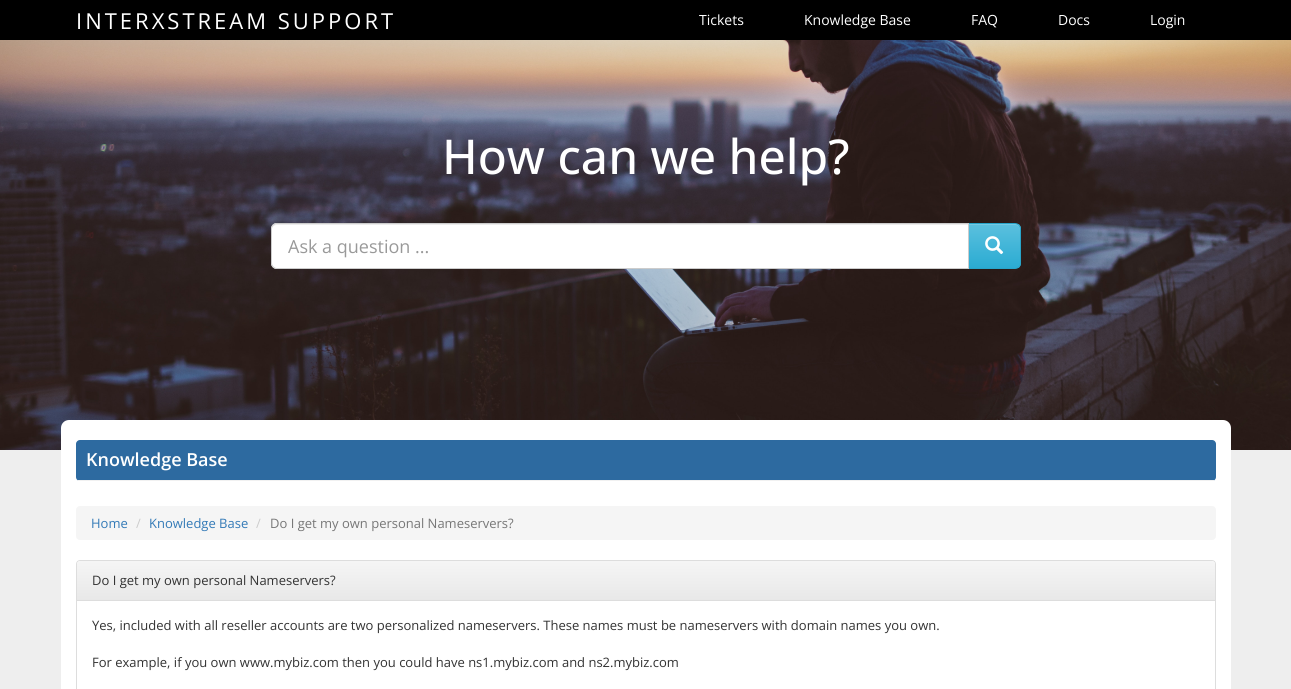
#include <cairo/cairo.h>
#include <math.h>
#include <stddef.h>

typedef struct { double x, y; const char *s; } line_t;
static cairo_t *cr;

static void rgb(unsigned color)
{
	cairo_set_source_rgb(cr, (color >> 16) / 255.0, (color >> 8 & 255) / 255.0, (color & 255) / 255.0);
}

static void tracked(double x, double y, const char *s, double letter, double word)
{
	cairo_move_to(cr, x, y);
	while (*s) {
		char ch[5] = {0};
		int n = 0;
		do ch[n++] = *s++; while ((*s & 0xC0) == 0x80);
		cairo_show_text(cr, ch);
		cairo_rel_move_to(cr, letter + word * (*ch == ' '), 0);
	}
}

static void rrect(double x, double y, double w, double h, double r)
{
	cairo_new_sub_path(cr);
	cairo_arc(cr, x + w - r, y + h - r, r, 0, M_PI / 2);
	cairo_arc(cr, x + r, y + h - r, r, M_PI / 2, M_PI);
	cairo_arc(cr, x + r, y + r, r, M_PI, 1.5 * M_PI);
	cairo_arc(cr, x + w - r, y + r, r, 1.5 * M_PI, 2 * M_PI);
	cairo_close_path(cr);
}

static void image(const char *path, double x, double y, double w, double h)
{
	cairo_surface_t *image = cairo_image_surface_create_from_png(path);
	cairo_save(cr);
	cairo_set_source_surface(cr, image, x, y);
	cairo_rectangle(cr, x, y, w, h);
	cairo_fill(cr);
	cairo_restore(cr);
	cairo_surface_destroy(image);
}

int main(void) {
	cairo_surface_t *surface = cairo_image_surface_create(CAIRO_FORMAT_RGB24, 1291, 689);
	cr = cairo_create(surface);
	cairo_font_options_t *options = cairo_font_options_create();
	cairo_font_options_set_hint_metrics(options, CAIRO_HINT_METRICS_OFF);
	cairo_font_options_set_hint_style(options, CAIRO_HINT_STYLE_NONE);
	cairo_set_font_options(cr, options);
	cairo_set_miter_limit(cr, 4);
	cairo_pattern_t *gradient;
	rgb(0xeeeeee);
	cairo_paint(cr);
	rgb(0x000000);
	cairo_rectangle(cr, 0, 0, 1291, 40);
	cairo_fill(cr);
	image("img/1.png", 0, 40, 1291, 410);
	cairo_save(cr);
	cairo_new_path(cr);
	cairo_move_to(cr, 968, 223);
	cairo_line_to(cr, 1015, 223);
	cairo_curve_to(cr, 1018.5, 223, 1021, 225.5, 1021, 229);
	cairo_line_to(cr, 1021, 263);
	cairo_curve_to(cr, 1021, 266.5, 1018.5, 269, 1015, 269);
	cairo_line_to(cr, 968, 269);
	cairo_close_path(cr);
	cairo_clip(cr);
	gradient = cairo_pattern_create_linear(995, 224, 995, 268);
	cairo_pattern_add_color_stop_rgba(gradient, 0, 0.357, 0.753, 0.871, 1);
	cairo_pattern_add_color_stop_rgba(gradient, 1, 0.165, 0.671, 0.824, 1);
	cairo_set_source(cr, gradient);
	cairo_pattern_destroy(gradient);
	cairo_rectangle(cr, 969, 224, 52, 44);
	cairo_fill(cr);
	cairo_restore(cr);
	rgb(0x73c9e3);
	cairo_new_path(cr);
	cairo_move_to(cr, 969, 225);
	cairo_line_to(cr, 1015, 225);
	cairo_curve_to(cr, 1018, 225, 1020, 227, 1020, 230);
	cairo_line_to(cr, 1020, 229);
	cairo_curve_to(cr, 1020, 226, 1018, 224, 1015, 224);
	cairo_line_to(cr, 969, 224);
	cairo_close_path(cr);
	cairo_fill(cr);
	cairo_new_path(cr);
	cairo_move_to(cr, 968.5, 223.5);
	cairo_line_to(cr, 1015, 223.5);
	cairo_curve_to(cr, 1018, 223.5, 1020.5, 226, 1020.5, 229);
	cairo_line_to(cr, 1020.5, 263);
	cairo_curve_to(cr, 1020.5, 266, 1018, 268.5, 1015, 268.5);
	cairo_line_to(cr, 968.5, 268.5);
	cairo_close_path(cr);
	rgb(0x28a4c9);
	cairo_set_line_width(cr, 1);
	cairo_stroke(cr);
	rgb(0xffffff);
	cairo_new_path(cr);
	cairo_move_to(cr, 277, 223);
	cairo_line_to(cr, 969, 223);
	cairo_line_to(cr, 969, 269);
	cairo_line_to(cr, 277, 269);
	cairo_curve_to(cr, 273.5, 269, 271, 266.5, 271, 263);
	cairo_line_to(cr, 271, 229);
	cairo_curve_to(cr, 271, 225.5, 273.5, 223, 277, 223);
	cairo_close_path(cr);
	cairo_fill(cr);
	rgb(0xececec);
	cairo_new_path(cr);
	cairo_move_to(cr, 277, 225);
	cairo_line_to(cr, 968, 225);
	cairo_line_to(cr, 968, 224);
	cairo_line_to(cr, 277, 224);
	cairo_curve_to(cr, 274, 224, 272, 227, 272, 230);
	cairo_curve_to(cr, 272, 227, 274, 225, 277, 225);
	cairo_close_path(cr);
	cairo_fill(cr);
	cairo_new_path(cr);
	cairo_move_to(cr, 277, 223.5);
	cairo_line_to(cr, 968.5, 223.5);
	cairo_line_to(cr, 968.5, 268.5);
	cairo_line_to(cr, 277, 268.5);
	cairo_curve_to(cr, 274, 268.5, 271.5, 266, 271.5, 263);
	cairo_line_to(cr, 271.5, 229);
	cairo_curve_to(cr, 271.5, 226, 274, 223.5, 277, 223.5);
	cairo_close_path(cr);
	rgb(0xcccccc);
	cairo_stroke(cr);
	image("img/2.png", 985, 236, 19, 19);
	rgb(0xffffff);
	rrect(61, 420, 1170, 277, 8);
	cairo_fill(cr);
	rgb(0x2d6aa0);
	rrect(76, 440, 1140, 41, 4);
	cairo_fill(cr);
	rgb(0xf1f1f1);
	cairo_rectangle(cr, 78, 480, 1136, 1);
	cairo_fill(cr);
	rgb(0xf5f5f5);
	rrect(76, 506, 1140, 34, 4);
	cairo_fill(cr);
	rrect(76.5, 560.5, 1139, 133, 3.5);
	rgb(0xdddddd);
	cairo_stroke(cr);
	gradient = cairo_pattern_create_linear(646, 561, 646, 600);
	cairo_pattern_add_color_stop_rgba(gradient, 0, 0.961, 0.961, 0.961, 1);
	cairo_pattern_add_color_stop_rgba(gradient, 1, 0.91, 0.91, 0.91, 1);
	cairo_set_source(cr, gradient);
	cairo_pattern_destroy(gradient);
	cairo_new_path(cr);
	cairo_move_to(cr, 80, 561);
	cairo_line_to(cr, 1212, 561);
	cairo_curve_to(cr, 1213.5, 561, 1215, 562.5, 1215, 564);
	cairo_line_to(cr, 1215, 600);
	cairo_line_to(cr, 77, 600);
	cairo_line_to(cr, 77, 564);
	cairo_curve_to(cr, 77, 562.5, 78.5, 561, 80, 561);
	cairo_close_path(cr);
	cairo_fill(cr);
	rgb(0xdddddd);
	cairo_rectangle(cr, 77, 600, 1138, 1);
	cairo_fill(cr);
	cairo_select_font_face(cr, "Open Sans", CAIRO_FONT_SLANT_NORMAL, CAIRO_FONT_WEIGHT_NORMAL);
	cairo_set_font_size(cr, 22);
	rgb(0xffffff);
	tracked(76, 29, "INTERXSTREAM SUPPORT", 3, 0);
	cairo_set_font_size(cr, 14);
	{
		static const line_t items[] = {
			{699, 25, "Tickets"},
			{804, 25, "Knowledge Base"},
			{971, 25, "FAQ"},
			{1058, 25, "Docs"},
			{1150, 25, "Login"},
		};
		for (size_t i = 0; i < sizeof items / sizeof *items; i++) {
			cairo_move_to(cr, items[i].x, items[i].y);
			cairo_show_text(cr, items[i].s);
		}
	}
	cairo_select_font_face(cr, "Open Sans Medium", CAIRO_FONT_SLANT_NORMAL, CAIRO_FONT_WEIGHT_NORMAL);
	cairo_set_font_size(cr, 48);
	cairo_move_to(cr, 442, 174);
	cairo_show_text(cr, "How can we help?");
	cairo_select_font_face(cr, "Open Sans", CAIRO_FONT_SLANT_NORMAL, CAIRO_FONT_WEIGHT_NORMAL);
	cairo_set_font_size(cr, 18);
	rgb(0x999999);
	cairo_move_to(cr, 288, 253);
	cairo_show_text(cr, "Ask a question ...");
	cairo_select_font_face(cr, "Open Sans SemiBold", CAIRO_FONT_SLANT_NORMAL, CAIRO_FONT_WEIGHT_NORMAL);
	rgb(0xffffff);
	cairo_move_to(cr, 86, 466);
	cairo_show_text(cr, "Knowledge Base");
	cairo_select_font_face(cr, "Open Sans", CAIRO_FONT_SLANT_NORMAL, CAIRO_FONT_WEIGHT_NORMAL);
	cairo_set_font_size(cr, 13);
	rgb(0x337ab7);
	cairo_move_to(cr, 91, 528);
	cairo_show_text(cr, "Home");
	rgb(0xcccccc);
	cairo_move_to(cr, 136, 528);
	cairo_show_text(cr, "/");
	rgb(0x337ab7);
	cairo_move_to(cr, 149, 528);
	cairo_show_text(cr, "Knowledge Base");
	rgb(0xcccccc);
	cairo_move_to(cr, 256, 528);
	cairo_show_text(cr, "/");
	rgb(0x777777);
	cairo_move_to(cr, 270, 528);
	cairo_show_text(cr, "Do I get my own personal Nameservers?");
	rgb(0x333333);
	{
		static const line_t items[] = {
			{92, 585, "Do I get my own personal Nameservers?"},
			{92, 630, "Yes, included with all reseller accounts are two personalized nameservers. These names must be nameservers with domain names you own."},
			{92, 667, "For example, if you own www.mybiz.com then you could have ns1.mybiz.com and ns2.mybiz.com"},
		};
		for (size_t i = 0; i < sizeof items / sizeof *items; i++) {
			cairo_move_to(cr, items[i].x, items[i].y);
			cairo_show_text(cr, items[i].s);
		}
	}
	cairo_surface_write_to_png(surface, "page.png");
	cairo_font_options_destroy(options);
	cairo_destroy(cr);
	cairo_surface_destroy(surface);
	return 0;
}
